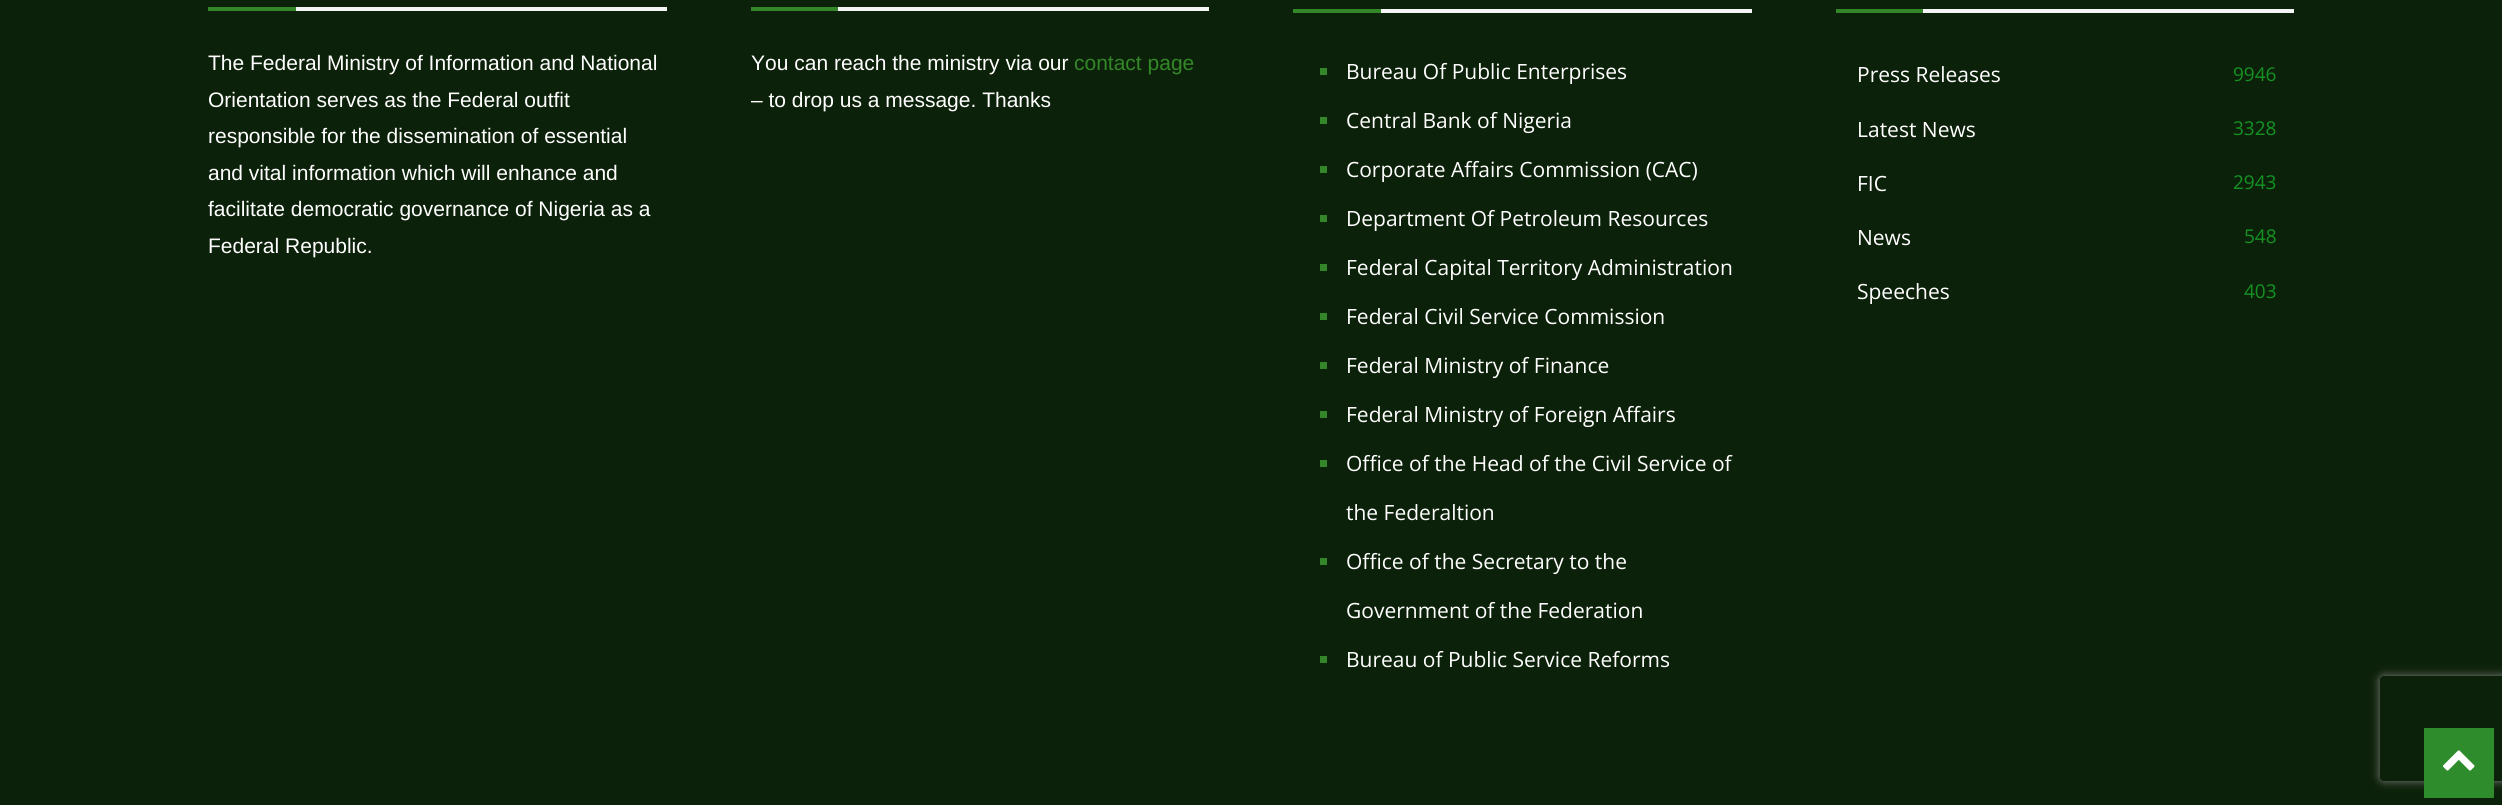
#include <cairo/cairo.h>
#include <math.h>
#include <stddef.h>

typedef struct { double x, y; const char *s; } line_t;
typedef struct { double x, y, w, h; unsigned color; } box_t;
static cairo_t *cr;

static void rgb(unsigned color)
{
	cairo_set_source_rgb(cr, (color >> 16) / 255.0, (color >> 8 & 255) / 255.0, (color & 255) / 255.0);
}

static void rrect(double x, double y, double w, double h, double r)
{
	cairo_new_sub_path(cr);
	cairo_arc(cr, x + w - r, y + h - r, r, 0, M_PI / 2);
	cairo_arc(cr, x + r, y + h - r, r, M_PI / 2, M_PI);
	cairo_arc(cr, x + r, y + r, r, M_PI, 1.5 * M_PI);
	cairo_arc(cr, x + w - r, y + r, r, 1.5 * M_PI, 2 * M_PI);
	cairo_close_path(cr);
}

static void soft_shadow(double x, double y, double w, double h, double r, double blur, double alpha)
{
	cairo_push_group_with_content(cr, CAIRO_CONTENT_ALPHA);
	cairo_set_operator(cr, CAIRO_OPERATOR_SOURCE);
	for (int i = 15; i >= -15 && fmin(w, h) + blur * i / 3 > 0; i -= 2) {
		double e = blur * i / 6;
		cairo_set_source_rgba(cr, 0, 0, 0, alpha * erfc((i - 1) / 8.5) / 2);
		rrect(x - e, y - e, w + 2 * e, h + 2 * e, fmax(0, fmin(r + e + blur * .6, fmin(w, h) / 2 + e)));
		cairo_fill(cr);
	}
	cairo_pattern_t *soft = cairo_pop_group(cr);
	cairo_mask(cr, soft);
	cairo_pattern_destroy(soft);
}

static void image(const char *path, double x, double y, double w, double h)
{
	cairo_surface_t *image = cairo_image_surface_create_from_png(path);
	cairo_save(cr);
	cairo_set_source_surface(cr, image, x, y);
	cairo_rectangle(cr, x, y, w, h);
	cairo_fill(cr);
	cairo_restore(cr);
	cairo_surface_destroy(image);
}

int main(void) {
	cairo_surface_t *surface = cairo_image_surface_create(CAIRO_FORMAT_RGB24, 2502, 805);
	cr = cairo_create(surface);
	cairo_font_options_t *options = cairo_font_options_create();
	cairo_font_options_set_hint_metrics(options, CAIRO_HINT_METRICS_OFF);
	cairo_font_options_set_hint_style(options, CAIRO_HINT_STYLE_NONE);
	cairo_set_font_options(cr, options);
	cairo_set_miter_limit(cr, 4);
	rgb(0x0c2109);
	cairo_paint(cr);
	{
		static const box_t items[] = {
			{208, 7, 88, 4, 0x338728},
			{296, 7, 371, 4, 0xf5f5f5},
			{751, 7, 87, 4, 0x338728},
			{838, 7, 371, 4, 0xf5f5f5},
			{1293, 9, 88, 4, 0x338728},
			{1381, 9, 371, 4, 0xf5f5f5},
			{1320, 68, 7, 7, 0x338728},
			{1320, 117, 7, 7, 0x338728},
			{1320, 166, 7, 7, 0x338728},
			{1320, 215, 7, 7, 0x338728},
			{1320, 264, 7, 7, 0x338728},
			{1320, 313, 7, 7, 0x338728},
			{1320, 362, 7, 7, 0x338728},
			{1320, 411, 7, 7, 0x338728},
			{1320, 460, 7, 7, 0x338728},
			{1320, 558, 7, 7, 0x338728},
			{1320, 656, 7, 7, 0x338728},
			{1836, 9, 87, 4, 0x338728},
			{1923, 9, 371, 4, 0xf5f5f5},
		};
		for (size_t i = 0; i < sizeof items / sizeof *items; i++) {
			rgb(items[i].color);
			cairo_rectangle(cr, items[i].x, items[i].y, items[i].w, items[i].h);
			cairo_fill(cr);
		}
	}
	cairo_save(cr);
	cairo_set_fill_rule(cr, CAIRO_FILL_RULE_EVEN_ODD);
	cairo_new_path(cr);
	cairo_move_to(cr, 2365, 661);
	cairo_line_to(cr, 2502, 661);
	cairo_line_to(cr, 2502, 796);
	cairo_line_to(cr, 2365, 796);
	cairo_close_path(cr);
	cairo_move_to(cr, 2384, 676);
	cairo_line_to(cr, 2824, 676);
	cairo_curve_to(cr, 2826, 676, 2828, 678, 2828, 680);
	cairo_line_to(cr, 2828, 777);
	cairo_curve_to(cr, 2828, 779, 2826, 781, 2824, 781);
	cairo_line_to(cr, 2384, 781);
	cairo_curve_to(cr, 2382, 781, 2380, 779, 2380, 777);
	cairo_line_to(cr, 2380, 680);
	cairo_curve_to(cr, 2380, 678, 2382, 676, 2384, 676);
	cairo_close_path(cr);
	cairo_clip(cr);
	rgb(0x808080);
	soft_shadow(2380, 676, 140, 105, 4, 4.5, 1);
	cairo_restore(cr);
	rgb(0x2e8c2c);
	cairo_rectangle(cr, 2424, 728, 70, 70);
	cairo_fill(cr);
	image("img/1.png", 2443, 750, 32, 21);
	cairo_select_font_face(cr, "Liberation Sans", CAIRO_FONT_SLANT_NORMAL, CAIRO_FONT_WEIGHT_NORMAL);
	cairo_set_font_size(cr, 21);
	rgb(0xffffff);
	{
		static const line_t items[] = {
			{208, 70, "The Federal Ministry of Information and National"},
			{208, 107, "Orientation serves as the Federal outfit"},
			{208, 143, "responsible for the dissemination of essential"},
			{208, 180, "and vital information which will enhance and"},
			{208, 216, "facilitate democratic governance of Nigeria as a"},
			{208, 253, "Federal Republic."},
			{751, 70, "You can reach the ministry via our"},
		};
		for (size_t i = 0; i < sizeof items / sizeof *items; i++) {
			cairo_move_to(cr, items[i].x, items[i].y);
			cairo_show_text(cr, items[i].s);
		}
	}
	rgb(0x338728);
	cairo_move_to(cr, 1074, 70);
	cairo_show_text(cr, "contact page");
	rgb(0xffffff);
	cairo_move_to(cr, 751, 107);
	cairo_show_text(cr, "– to drop us a message. Thanks");
	cairo_select_font_face(cr, "Open Sans", CAIRO_FONT_SLANT_NORMAL, CAIRO_FONT_WEIGHT_NORMAL);
	{
		static const line_t items[] = {
			{1346, 79, "Bureau Of Public Enterprises"},
			{1346, 128, "Central Bank of Nigeria"},
			{1346, 177, "Corporate Affairs Commission (CAC)"},
			{1346, 226, "Department Of Petroleum Resources"},
			{1346, 275, "Federal Capital Territory Administration"},
			{1346, 324, "Federal Civil Service Commission"},
			{1346, 373, "Federal Ministry of Finance"},
			{1346, 422, "Federal Ministry of Foreign Affairs"},
			{1346, 471, "Office of the Head of the Civil Service of"},
			{1346, 520, "the Federaltion"},
			{1346, 569, "Office of the Secretary to the"},
			{1346, 618, "Government of the Federation"},
			{1346, 667, "Bureau of Public Service Reforms"},
			{1857, 82, "Press Releases"},
		};
		for (size_t i = 0; i < sizeof items / sizeof *items; i++) {
			cairo_move_to(cr, items[i].x, items[i].y);
			cairo_show_text(cr, items[i].s);
		}
	}
	cairo_set_font_size(cr, 19);
	rgb(0x149323);
	cairo_move_to(cr, 2233, 81);
	cairo_show_text(cr, "9946");
	cairo_set_font_size(cr, 21);
	rgb(0xffffff);
	cairo_move_to(cr, 1857, 137);
	cairo_show_text(cr, "Latest News");
	cairo_set_font_size(cr, 19);
	rgb(0x149323);
	cairo_move_to(cr, 2233, 135);
	cairo_show_text(cr, "3328");
	cairo_set_font_size(cr, 21);
	rgb(0xffffff);
	cairo_move_to(cr, 1857, 191);
	cairo_show_text(cr, "FIC");
	cairo_set_font_size(cr, 19);
	rgb(0x149323);
	cairo_move_to(cr, 2233, 189);
	cairo_show_text(cr, "2943");
	cairo_set_font_size(cr, 21);
	rgb(0xffffff);
	cairo_move_to(cr, 1857, 245);
	cairo_show_text(cr, "News");
	cairo_set_font_size(cr, 19);
	rgb(0x149323);
	cairo_move_to(cr, 2244, 243);
	cairo_show_text(cr, "548");
	cairo_set_font_size(cr, 21);
	rgb(0xffffff);
	cairo_move_to(cr, 1857, 299);
	cairo_show_text(cr, "Speeches");
	cairo_set_font_size(cr, 19);
	rgb(0x149323);
	cairo_move_to(cr, 2244, 298);
	cairo_show_text(cr, "403");
	cairo_surface_write_to_png(surface, "page.png");
	cairo_font_options_destroy(options);
	cairo_destroy(cr);
	cairo_surface_destroy(surface);
	return 0;
}
